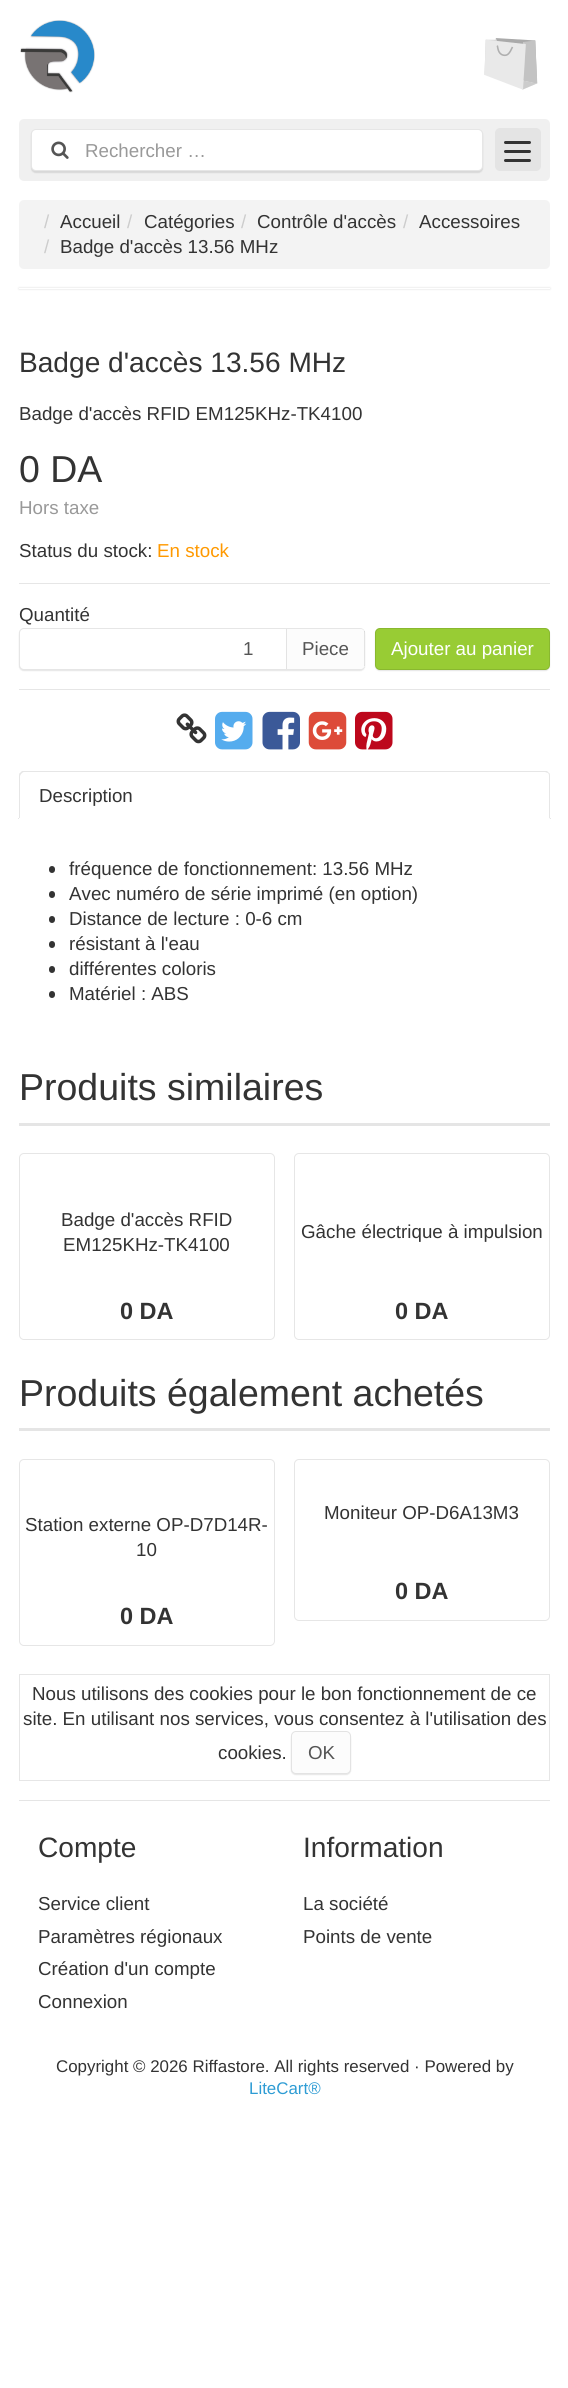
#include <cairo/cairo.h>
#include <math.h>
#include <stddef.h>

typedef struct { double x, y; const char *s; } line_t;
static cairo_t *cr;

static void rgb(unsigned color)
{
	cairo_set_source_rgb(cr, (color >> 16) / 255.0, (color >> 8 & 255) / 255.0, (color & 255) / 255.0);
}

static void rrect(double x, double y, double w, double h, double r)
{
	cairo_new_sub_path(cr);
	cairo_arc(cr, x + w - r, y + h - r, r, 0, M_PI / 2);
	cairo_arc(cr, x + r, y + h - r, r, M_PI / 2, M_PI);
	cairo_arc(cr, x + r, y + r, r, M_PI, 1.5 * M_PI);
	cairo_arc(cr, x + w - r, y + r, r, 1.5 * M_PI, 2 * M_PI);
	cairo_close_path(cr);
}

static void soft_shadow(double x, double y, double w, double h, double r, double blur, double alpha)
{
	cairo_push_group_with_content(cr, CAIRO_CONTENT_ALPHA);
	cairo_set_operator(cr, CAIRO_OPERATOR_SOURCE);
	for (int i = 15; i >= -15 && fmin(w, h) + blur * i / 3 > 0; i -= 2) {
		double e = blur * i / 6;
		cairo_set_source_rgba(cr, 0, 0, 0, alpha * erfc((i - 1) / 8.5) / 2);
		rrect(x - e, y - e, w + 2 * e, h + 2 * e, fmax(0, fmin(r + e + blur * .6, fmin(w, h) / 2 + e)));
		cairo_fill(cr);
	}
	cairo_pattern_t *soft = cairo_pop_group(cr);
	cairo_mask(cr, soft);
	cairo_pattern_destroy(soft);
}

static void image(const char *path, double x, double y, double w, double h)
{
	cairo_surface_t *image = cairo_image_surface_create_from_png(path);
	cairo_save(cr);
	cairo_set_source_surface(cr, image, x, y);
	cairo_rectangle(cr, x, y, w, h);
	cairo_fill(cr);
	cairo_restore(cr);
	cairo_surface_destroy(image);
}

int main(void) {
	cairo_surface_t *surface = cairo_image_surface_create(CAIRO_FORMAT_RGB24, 568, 2388);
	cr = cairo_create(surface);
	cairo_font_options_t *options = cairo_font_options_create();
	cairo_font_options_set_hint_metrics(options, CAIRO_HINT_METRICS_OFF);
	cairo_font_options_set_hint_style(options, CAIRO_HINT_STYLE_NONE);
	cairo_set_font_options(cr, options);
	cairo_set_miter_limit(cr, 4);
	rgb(0xffffff);
	cairo_paint(cr);
	image("img/1.png", 20, 20, 75, 73);
	image("img/2.png", 484, 38, 54, 52);
	rgb(0xf0f0f0);
	rrect(19, 119, 531, 62, 5);
	cairo_fill(cr);
	rgb(0x000000);
	soft_shadow(31, 130, 452, 43, 5, 0.5, 0.1);
	rgb(0xffffff);
	rrect(31, 129, 452, 42, 5);
	cairo_fill(cr);
	rrect(31.5, 129.5, 451, 41, 4.5);
	cairo_set_source_rgba(cr, 0, 0, 0, 0.1);
	cairo_set_line_width(cr, 1);
	cairo_stroke(cr);
	image("img/3.png", 51, 141, 18, 18);
	rgb(0xe4e4e4);
	rrect(495, 128, 46, 43, 5);
	cairo_fill(cr);
	rgb(0x333333);
	rrect(504, 141, 27, 3, 1.5);
	cairo_fill(cr);
	rrect(504, 150, 27, 3, 1.5);
	cairo_fill(cr);
	rrect(504, 159, 27, 3, 1.5);
	cairo_fill(cr);
	rgb(0xf3f3f3);
	rrect(19, 200, 531, 69, 5);
	cairo_fill(cr);
	rgb(0x000000);
	soft_shadow(19, 288, 531, 1, 0, 1, 0.15);
	rgb(0xffffff);
	cairo_rectangle(cr, 19, 288, 531, 1);
	cairo_fill(cr);
	rgb(0xe6e6e6);
	cairo_rectangle(cr, 19, 583, 531, 1);
	cairo_fill(cr);
	rgb(0x000000);
	soft_shadow(19, 629, 346, 42, 5, 0.5, 0.1);
	rgb(0xffffff);
	rrect(19, 628, 346, 42, 5);
	cairo_fill(cr);
	rrect(19.5, 628.5, 345, 41, 4.5);
	cairo_set_source_rgba(cr, 0, 0, 0, 0.1);
	cairo_stroke(cr);
	rgb(0xfcfcfc);
	cairo_new_path(cr);
	cairo_move_to(cr, 286, 629);
	cairo_line_to(cr, 360, 629);
	cairo_curve_to(cr, 363, 629, 365, 631, 365, 634);
	cairo_line_to(cr, 365, 664);
	cairo_curve_to(cr, 365, 667, 363, 669, 360, 669);
	cairo_line_to(cr, 286, 669);
	cairo_close_path(cr);
	cairo_fill(cr);
	cairo_set_source_rgba(cr, 0, 0, 0, 0.1);
	cairo_rectangle(cr, 364, 631, 1, 35);
	cairo_fill(cr);
	rgb(0xe3e3e3);
	cairo_rectangle(cr, 286, 629, 1, 40);
	cairo_fill(cr);
	rgb(0x000000);
	soft_shadow(375, 629, 175, 42, 5, 0.5, 0.1);
	rgb(0x98cc34);
	rrect(375, 628, 175, 42, 5);
	cairo_fill(cr);
	rrect(375.5, 628.5, 174, 41, 4.5);
	cairo_set_source_rgba(cr, 0, 0, 0, 0.1);
	cairo_stroke(cr);
	rgb(0xe6e6e6);
	cairo_rectangle(cr, 19, 689, 531, 1);
	cairo_fill(cr);
	image("img/4.png", 176, 713, 31, 31);
	image("img/5.png", 215, 711, 38, 39);
	image("img/6.png", 262, 711, 38, 39);
	image("img/7.png", 308, 711, 39, 39);
	image("img/8.png", 355, 711, 38, 39);
	cairo_rectangle(cr, 18, 818, 533, 1);
	cairo_fill(cr);
	rgb(0xffffff);
	cairo_new_path(cr);
	cairo_move_to(cr, 24, 771);
	cairo_line_to(cr, 545, 771);
	cairo_curve_to(cr, 548, 771, 550, 773, 550, 776);
	cairo_line_to(cr, 550, 819);
	cairo_line_to(cr, 19, 819);
	cairo_line_to(cr, 19, 776);
	cairo_curve_to(cr, 19, 773, 21, 771, 24, 771);
	cairo_close_path(cr);
	cairo_fill(cr);
	rgb(0xe6e6e6);
	cairo_new_path(cr);
	cairo_move_to(cr, 24, 772);
	cairo_curve_to(cr, 23, 772, 22, 773, 21, 774);
	cairo_line_to(cr, 20, 773);
	cairo_line_to(cr, 22, 771);
	cairo_line_to(cr, 547, 771);
	cairo_line_to(cr, 549, 773);
	cairo_line_to(cr, 548, 773);
	cairo_line_to(cr, 545, 772);
	cairo_close_path(cr);
	cairo_fill(cr);
	cairo_new_path(cr);
	cairo_move_to(cr, 550, 819);
	cairo_line_to(cr, 550, 776);
	cairo_curve_to(cr, 550, 775, 550, 773, 549, 773);
	cairo_line_to(cr, 548, 773);
	cairo_curve_to(cr, 549, 774, 549, 775, 549, 776);
	cairo_line_to(cr, 549, 818);
	cairo_close_path(cr);
	cairo_fill(cr);
	rgb(0xffffff);
	cairo_new_path(cr);
	cairo_move_to(cr, 550, 819);
	cairo_line_to(cr, 19, 819);
	cairo_line_to(cr, 20, 818);
	cairo_line_to(cr, 549, 818);
	cairo_close_path(cr);
	cairo_fill(cr);
	cairo_set_source_rgba(cr, 0, 0, 0, 0.1);
	cairo_new_path(cr);
	cairo_move_to(cr, 19, 818);
	cairo_line_to(cr, 19, 776);
	cairo_curve_to(cr, 19, 775, 19, 773, 20, 773);
	cairo_line_to(cr, 21, 774);
	cairo_line_to(cr, 20, 776);
	cairo_line_to(cr, 20, 818);
	cairo_close_path(cr);
	cairo_fill(cr);
	rgb(0x333333);
	rrect(49, 866, 6, 7, 3);
	cairo_fill(cr);
	rrect(49, 891, 6, 7, 3);
	cairo_fill(cr);
	rrect(49, 916, 6, 7, 3);
	cairo_fill(cr);
	rrect(49, 941, 6, 7, 3);
	cairo_fill(cr);
	rrect(49, 966, 6, 7, 3);
	cairo_fill(cr);
	rrect(49, 991, 6, 7, 3);
	cairo_fill(cr);
	rgb(0xe5e5e5);
	cairo_rectangle(cr, 19, 1123, 531, 3);
	cairo_fill(cr);
	rrect(19.5, 1153.5, 255, 186, 4.5);
	rgb(0xe6e6e6);
	cairo_stroke(cr);
	rrect(294.5, 1153.5, 255, 186, 4.5);
	cairo_stroke(cr);
	rgb(0xe5e5e5);
	cairo_rectangle(cr, 19, 1428, 531, 3);
	cairo_fill(cr);
	rrect(19.5, 1459.5, 255, 186, 4.5);
	rgb(0xe6e6e6);
	cairo_stroke(cr);
	rrect(294.5, 1459.5, 255, 161, 4.5);
	cairo_stroke(cr);
	cairo_rectangle(cr, 19.5, 1674.5, 530, 106);
	cairo_stroke(cr);
	rgb(0x000000);
	soft_shadow(291, 1733, 60, 42, 5, 0.5, 0.1);
	rgb(0xfcfcfc);
	rrect(291, 1731, 60, 43, 5);
	cairo_fill(cr);
	rrect(291.5, 1731.5, 59, 42, 4.5);
	cairo_set_source_rgba(cr, 0, 0, 0, 0.1);
	cairo_stroke(cr);
	rgb(0xe5e5e5);
	cairo_rectangle(cr, 19, 1800, 531, 1);
	cairo_fill(cr);
	cairo_select_font_face(cr, "Liberation Sans", CAIRO_FONT_SLANT_NORMAL, CAIRO_FONT_WEIGHT_NORMAL);
	cairo_set_font_size(cr, 18.75);
	rgb(0x999999);
	cairo_move_to(cr, 85, 157);
	cairo_show_text(cr, "Rechercher …");
	rgb(0xcccccc);
	cairo_move_to(cr, 44, 228);
	cairo_show_text(cr, "/");
	rgb(0x333333);
	cairo_move_to(cr, 60, 228);
	cairo_show_text(cr, "Accueil");
	rgb(0xcccccc);
	cairo_move_to(cr, 127, 228);
	cairo_show_text(cr, "/");
	rgb(0x333333);
	cairo_move_to(cr, 144, 228);
	cairo_show_text(cr, "Catégories");
	rgb(0xcccccc);
	cairo_move_to(cr, 241, 228);
	cairo_show_text(cr, "/");
	rgb(0x333333);
	cairo_move_to(cr, 257, 228);
	cairo_show_text(cr, "Contrôle d'accès");
	rgb(0xcccccc);
	cairo_move_to(cr, 403, 228);
	cairo_show_text(cr, "/");
	rgb(0x333333);
	cairo_move_to(cr, 419, 228);
	cairo_show_text(cr, "Accessoires");
	rgb(0xcccccc);
	cairo_move_to(cr, 44, 253);
	cairo_show_text(cr, "/");
	rgb(0x333333);
	cairo_move_to(cr, 60, 253);
	cairo_show_text(cr, "Badge d'accès 13.56 MHz");
	cairo_set_font_size(cr, 28.1);
	cairo_move_to(cr, 19, 372);
	cairo_show_text(cr, "Badge d'accès 13.56 MHz");
	cairo_set_font_size(cr, 18.75);
	cairo_move_to(cr, 19, 420);
	cairo_show_text(cr, "Badge d'accès RFID EM125KHz-TK4100");
	cairo_set_font_size(cr, 37.5);
	cairo_move_to(cr, 19, 482);
	cairo_show_text(cr, "0 DA");
	cairo_set_font_size(cr, 18.75);
	rgb(0x999999);
	cairo_move_to(cr, 19, 514);
	cairo_show_text(cr, "Hors taxe");
	rgb(0x333333);
	cairo_move_to(cr, 19, 557);
	cairo_show_text(cr, "Status du stock:");
	rgb(0xff9900);
	cairo_move_to(cr, 157, 557);
	cairo_show_text(cr, "En stock");
	rgb(0x333333);
	cairo_move_to(cr, 19, 621);
	cairo_show_text(cr, "Quantité");
	rgb(0x555555);
	cairo_move_to(cr, 243, 655);
	cairo_show_text(cr, "1");
	cairo_move_to(cr, 302, 655);
	cairo_show_text(cr, "Piece");
	rgb(0xffffff);
	cairo_move_to(cr, 391, 655);
	cairo_show_text(cr, "Ajouter au panier");
	rgb(0x333333);
	{
		static const line_t items[] = {
			{39, 802, "Description"},
			{69, 875, "fréquence de fonctionnement: 13.56 MHz"},
			{69, 900, "Avec numéro de série imprimé (en option)"},
			{69, 925, "Distance de lecture : 0-6 cm"},
			{69, 950, "résistant à l'eau"},
			{69, 975, "différentes coloris"},
			{69, 1000, "Matériel : ABS"},
		};
		for (size_t i = 0; i < sizeof items / sizeof *items; i++) {
			cairo_move_to(cr, items[i].x, items[i].y);
			cairo_show_text(cr, items[i].s);
		}
	}
	cairo_set_font_size(cr, 37.5);
	cairo_move_to(cr, 19, 1100);
	cairo_show_text(cr, "Produits similaires");
	cairo_set_font_size(cr, 18.75);
	cairo_move_to(cr, 61, 1226);
	cairo_show_text(cr, "Badge d'accès RFID");
	cairo_move_to(cr, 63, 1251);
	cairo_show_text(cr, "EM125KHz-TK4100");
	cairo_select_font_face(cr, "Liberation Sans", CAIRO_FONT_SLANT_NORMAL, CAIRO_FONT_WEIGHT_BOLD);
	cairo_set_font_size(cr, 23.5);
	cairo_move_to(cr, 120, 1319);
	cairo_show_text(cr, "0 DA");
	cairo_select_font_face(cr, "Liberation Sans", CAIRO_FONT_SLANT_NORMAL, CAIRO_FONT_WEIGHT_NORMAL);
	cairo_set_font_size(cr, 18.75);
	cairo_move_to(cr, 301, 1238);
	cairo_show_text(cr, "Gâche électrique à impulsion");
	cairo_select_font_face(cr, "Liberation Sans", CAIRO_FONT_SLANT_NORMAL, CAIRO_FONT_WEIGHT_BOLD);
	cairo_set_font_size(cr, 23.5);
	cairo_move_to(cr, 395, 1319);
	cairo_show_text(cr, "0 DA");
	cairo_select_font_face(cr, "Liberation Sans", CAIRO_FONT_SLANT_NORMAL, CAIRO_FONT_WEIGHT_NORMAL);
	cairo_set_font_size(cr, 37.5);
	cairo_move_to(cr, 19, 1406);
	cairo_show_text(cr, "Produits également achetés");
	cairo_set_font_size(cr, 18.75);
	cairo_move_to(cr, 25, 1531);
	cairo_show_text(cr, "Station externe OP-D7D14R-");
	cairo_move_to(cr, 136, 1556);
	cairo_show_text(cr, "10");
	cairo_select_font_face(cr, "Liberation Sans", CAIRO_FONT_SLANT_NORMAL, CAIRO_FONT_WEIGHT_BOLD);
	cairo_set_font_size(cr, 23.5);
	cairo_move_to(cr, 120, 1624);
	cairo_show_text(cr, "0 DA");
	cairo_select_font_face(cr, "Liberation Sans", CAIRO_FONT_SLANT_NORMAL, CAIRO_FONT_WEIGHT_NORMAL);
	cairo_set_font_size(cr, 18.75);
	cairo_move_to(cr, 324, 1519);
	cairo_show_text(cr, "Moniteur OP-D6A13M3");
	cairo_select_font_face(cr, "Liberation Sans", CAIRO_FONT_SLANT_NORMAL, CAIRO_FONT_WEIGHT_BOLD);
	cairo_set_font_size(cr, 23.5);
	cairo_move_to(cr, 395, 1599);
	cairo_show_text(cr, "0 DA");
	cairo_select_font_face(cr, "Liberation Sans", CAIRO_FONT_SLANT_NORMAL, CAIRO_FONT_WEIGHT_NORMAL);
	cairo_set_font_size(cr, 18.75);
	{
		static const line_t items[] = {
			{32, 1700, "Nous utilisons des cookies pour le bon fonctionnement de ce"},
			{23, 1725, "site. En utilisant nos services, vous consentez à l'utilisation des"},
			{218, 1759, "cookies."},
		};
		for (size_t i = 0; i < sizeof items / sizeof *items; i++) {
			cairo_move_to(cr, items[i].x, items[i].y);
			cairo_show_text(cr, items[i].s);
		}
	}
	rgb(0x555555);
	cairo_move_to(cr, 308, 1759);
	cairo_show_text(cr, "OK");
	cairo_set_font_size(cr, 28.1);
	rgb(0x333333);
	cairo_move_to(cr, 38, 1857);
	cairo_show_text(cr, "Compte");
	cairo_set_font_size(cr, 18.75);
	{
		static const line_t items[] = {
			{38, 1910, "Service client"},
			{38, 1943, "Paramètres régionaux"},
			{38, 1975, "Création d'un compte"},
			{38, 2008, "Connexion"},
		};
		for (size_t i = 0; i < sizeof items / sizeof *items; i++) {
			cairo_move_to(cr, items[i].x, items[i].y);
			cairo_show_text(cr, items[i].s);
		}
	}
	cairo_set_font_size(cr, 28.1);
	cairo_move_to(cr, 303, 1857);
	cairo_show_text(cr, "Information");
	cairo_set_font_size(cr, 18.75);
	cairo_move_to(cr, 303, 1910);
	cairo_show_text(cr, "La société");
	cairo_move_to(cr, 303, 1943);
	cairo_show_text(cr, "Points de vente");
	cairo_set_font_size(cr, 16.9);
	cairo_move_to(cr, 56, 2072);
	cairo_show_text(cr, "Copyright © 2026 Riffastore. All rights reserved · Powered by");
	rgb(0x2e9cd4);
	cairo_move_to(cr, 249, 2094);
	cairo_show_text(cr, "LiteCart®");
	cairo_surface_write_to_png(surface, "page.png");
	cairo_font_options_destroy(options);
	cairo_destroy(cr);
	cairo_surface_destroy(surface);
	return 0;
}
